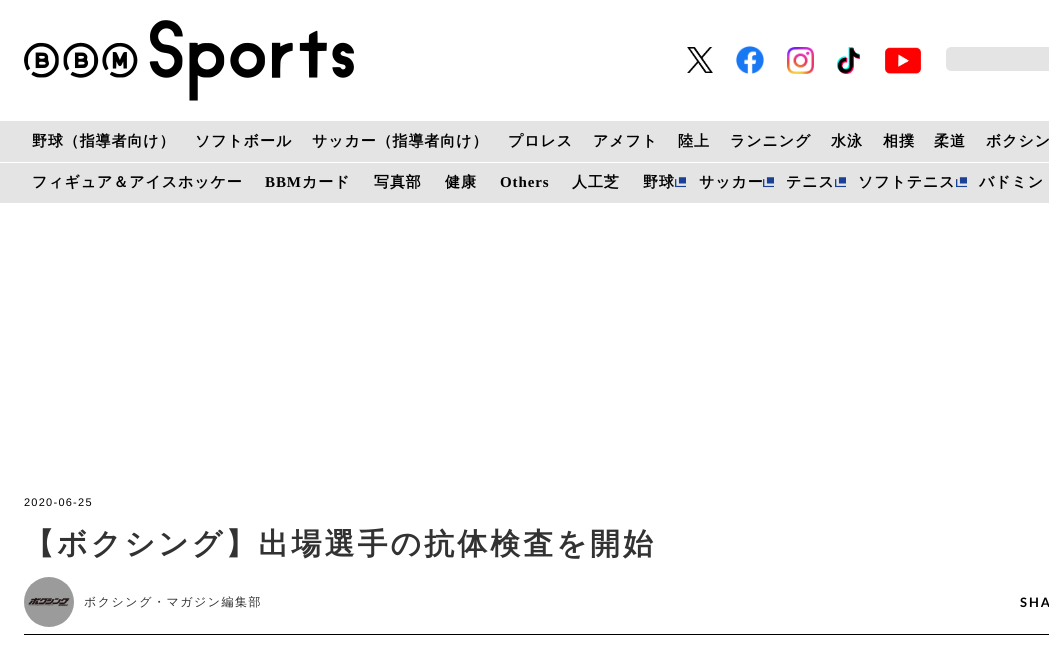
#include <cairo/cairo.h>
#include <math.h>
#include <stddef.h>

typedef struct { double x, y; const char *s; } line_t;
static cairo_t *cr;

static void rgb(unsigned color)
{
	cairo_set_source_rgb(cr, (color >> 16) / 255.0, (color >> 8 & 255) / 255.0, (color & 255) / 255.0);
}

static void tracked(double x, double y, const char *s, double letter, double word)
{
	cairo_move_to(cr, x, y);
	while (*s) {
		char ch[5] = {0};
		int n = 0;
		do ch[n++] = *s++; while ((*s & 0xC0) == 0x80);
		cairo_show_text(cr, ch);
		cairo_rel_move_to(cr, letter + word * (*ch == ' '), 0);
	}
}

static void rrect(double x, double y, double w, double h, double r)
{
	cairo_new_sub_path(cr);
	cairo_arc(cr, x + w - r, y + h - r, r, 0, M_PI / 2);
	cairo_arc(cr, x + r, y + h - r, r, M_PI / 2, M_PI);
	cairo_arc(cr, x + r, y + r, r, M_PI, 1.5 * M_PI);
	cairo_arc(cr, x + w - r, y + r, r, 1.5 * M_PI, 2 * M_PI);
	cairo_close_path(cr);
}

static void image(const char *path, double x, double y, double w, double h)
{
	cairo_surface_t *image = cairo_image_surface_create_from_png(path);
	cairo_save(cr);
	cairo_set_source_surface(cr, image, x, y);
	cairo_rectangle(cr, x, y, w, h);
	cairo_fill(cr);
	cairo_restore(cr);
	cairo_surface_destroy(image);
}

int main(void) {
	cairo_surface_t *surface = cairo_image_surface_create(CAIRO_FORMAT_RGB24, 1049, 646);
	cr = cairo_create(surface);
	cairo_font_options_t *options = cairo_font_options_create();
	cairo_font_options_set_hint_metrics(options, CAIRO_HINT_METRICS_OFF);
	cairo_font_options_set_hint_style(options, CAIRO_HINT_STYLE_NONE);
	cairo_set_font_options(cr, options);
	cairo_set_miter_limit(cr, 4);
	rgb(0xffffff);
	cairo_paint(cr);
	image("img/1.png", 24, 20, 330, 81);
	image("img/2.png", 687, 47, 26, 26);
	image("img/3.png", 736, 46, 28, 28);
	image("img/4.png", 787, 47, 27, 27);
	image("img/5.png", 837, 47, 23, 27);
	image("img/6.png", 885, 47, 36, 27);
	rgb(0xe4e4e4);
	rrect(946, 47, 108, 24, 5);
	cairo_fill(cr);
	cairo_rectangle(cr, 0, 121, 1049, 82);
	cairo_fill(cr);
	image("img/7.png", 675, 177, 11, 11);
	image("img/7.png", 763, 177, 11, 11);
	image("img/7.png", 835, 177, 11, 11);
	image("img/7.png", 956, 177, 11, 11);
	rgb(0xffffff);
	cairo_rectangle(cr, 0, 162, 1049, 1);
	cairo_fill(cr);
	rgb(0x000000);
	cairo_rectangle(cr, 24, 634, 1025, 1);
	cairo_fill(cr);
	rgb(0xeeeeee);
	cairo_arc(cr, 49, 602, 25, 0, 2 * M_PI);
	cairo_fill(cr);
	image("img/8.png", 24, 577, 50, 50);
	cairo_select_font_face(cr, "WenQuanYi Zen Hei", CAIRO_FONT_SLANT_NORMAL, CAIRO_FONT_WEIGHT_BOLD);
	cairo_set_font_size(cr, 15);
	rgb(0x000000);
	{
		static const line_t items[] = {
			{32, 146, "野球（指導者向け）"},
			{195, 146, "ソフトボール"},
			{312, 146, "サッカー（指導者向け）"},
			{508, 146, "プロレス"},
			{593, 146, "アメフト"},
			{678, 146, "陸上"},
			{730, 146, "ランニング"},
			{831, 146, "水泳"},
			{883, 146, "相撲"},
			{934, 146, "柔道"},
			{986, 146, "ボクシン"},
			{32, 187, "フィギュア＆アイスホッケー"},
		};
		for (size_t i = 0; i < sizeof items / sizeof *items; i++) {
			tracked(items[i].x, items[i].y, items[i].s, 0.9, 0);
		}
	}
	cairo_select_font_face(cr, "Liberation Serif", CAIRO_FONT_SLANT_NORMAL, CAIRO_FONT_WEIGHT_BOLD);
	tracked(265, 187, "BBM", 0.9, 0);
	cairo_select_font_face(cr, "WenQuanYi Zen Hei", CAIRO_FONT_SLANT_NORMAL, CAIRO_FONT_WEIGHT_BOLD);
	{
		static const line_t items[] = {
			{302, 187, "カード"},
			{374, 187, "写真部"},
			{445, 187, "健康"},
		};
		for (size_t i = 0; i < sizeof items / sizeof *items; i++) {
			tracked(items[i].x, items[i].y, items[i].s, 0.9, 0);
		}
	}
	cairo_select_font_face(cr, "Liberation Serif", CAIRO_FONT_SLANT_NORMAL, CAIRO_FONT_WEIGHT_BOLD);
	tracked(500, 187, "Others", 0.9, 0);
	cairo_select_font_face(cr, "WenQuanYi Zen Hei", CAIRO_FONT_SLANT_NORMAL, CAIRO_FONT_WEIGHT_BOLD);
	{
		static const line_t items[] = {
			{572, 187, "人工芝"},
			{643, 187, "野球"},
			{699, 187, "サッカー"},
			{786, 187, "テニス"},
			{858, 187, "ソフトテニス"},
			{979, 187, "バドミン"},
		};
		for (size_t i = 0; i < sizeof items / sizeof *items; i++) {
			tracked(items[i].x, items[i].y, items[i].s, 0.9, 0);
		}
	}
	cairo_select_font_face(cr, "Liberation Sans", CAIRO_FONT_SLANT_NORMAL, CAIRO_FONT_WEIGHT_NORMAL);
	cairo_set_font_size(cr, 11);
	tracked(24, 506, "2020-06-25", 1.25, 0);
	cairo_select_font_face(cr, "WenQuanYi Zen Hei", CAIRO_FONT_SLANT_NORMAL, CAIRO_FONT_WEIGHT_BOLD);
	cairo_set_font_size(cr, 30);
	rgb(0x323232);
	tracked(24, 554, "【ボクシング】出場選手の抗体検査を開始", 3, 0);
	cairo_select_font_face(cr, "WenQuanYi Zen Hei Medium", CAIRO_FONT_SLANT_NORMAL, CAIRO_FONT_WEIGHT_NORMAL);
	cairo_set_font_size(cr, 12);
	tracked(84, 606, "ボクシング・マガジン編集部", 1.5, 0);
	cairo_select_font_face(cr, "Lato", CAIRO_FONT_SLANT_NORMAL, CAIRO_FONT_WEIGHT_BOLD);
	cairo_set_font_size(cr, 13);
	rgb(0x000000);
	tracked(1020, 607, "SHA", 2, 0);
	cairo_surface_write_to_png(surface, "page.png");
	cairo_font_options_destroy(options);
	cairo_destroy(cr);
	cairo_surface_destroy(surface);
	return 0;
}
